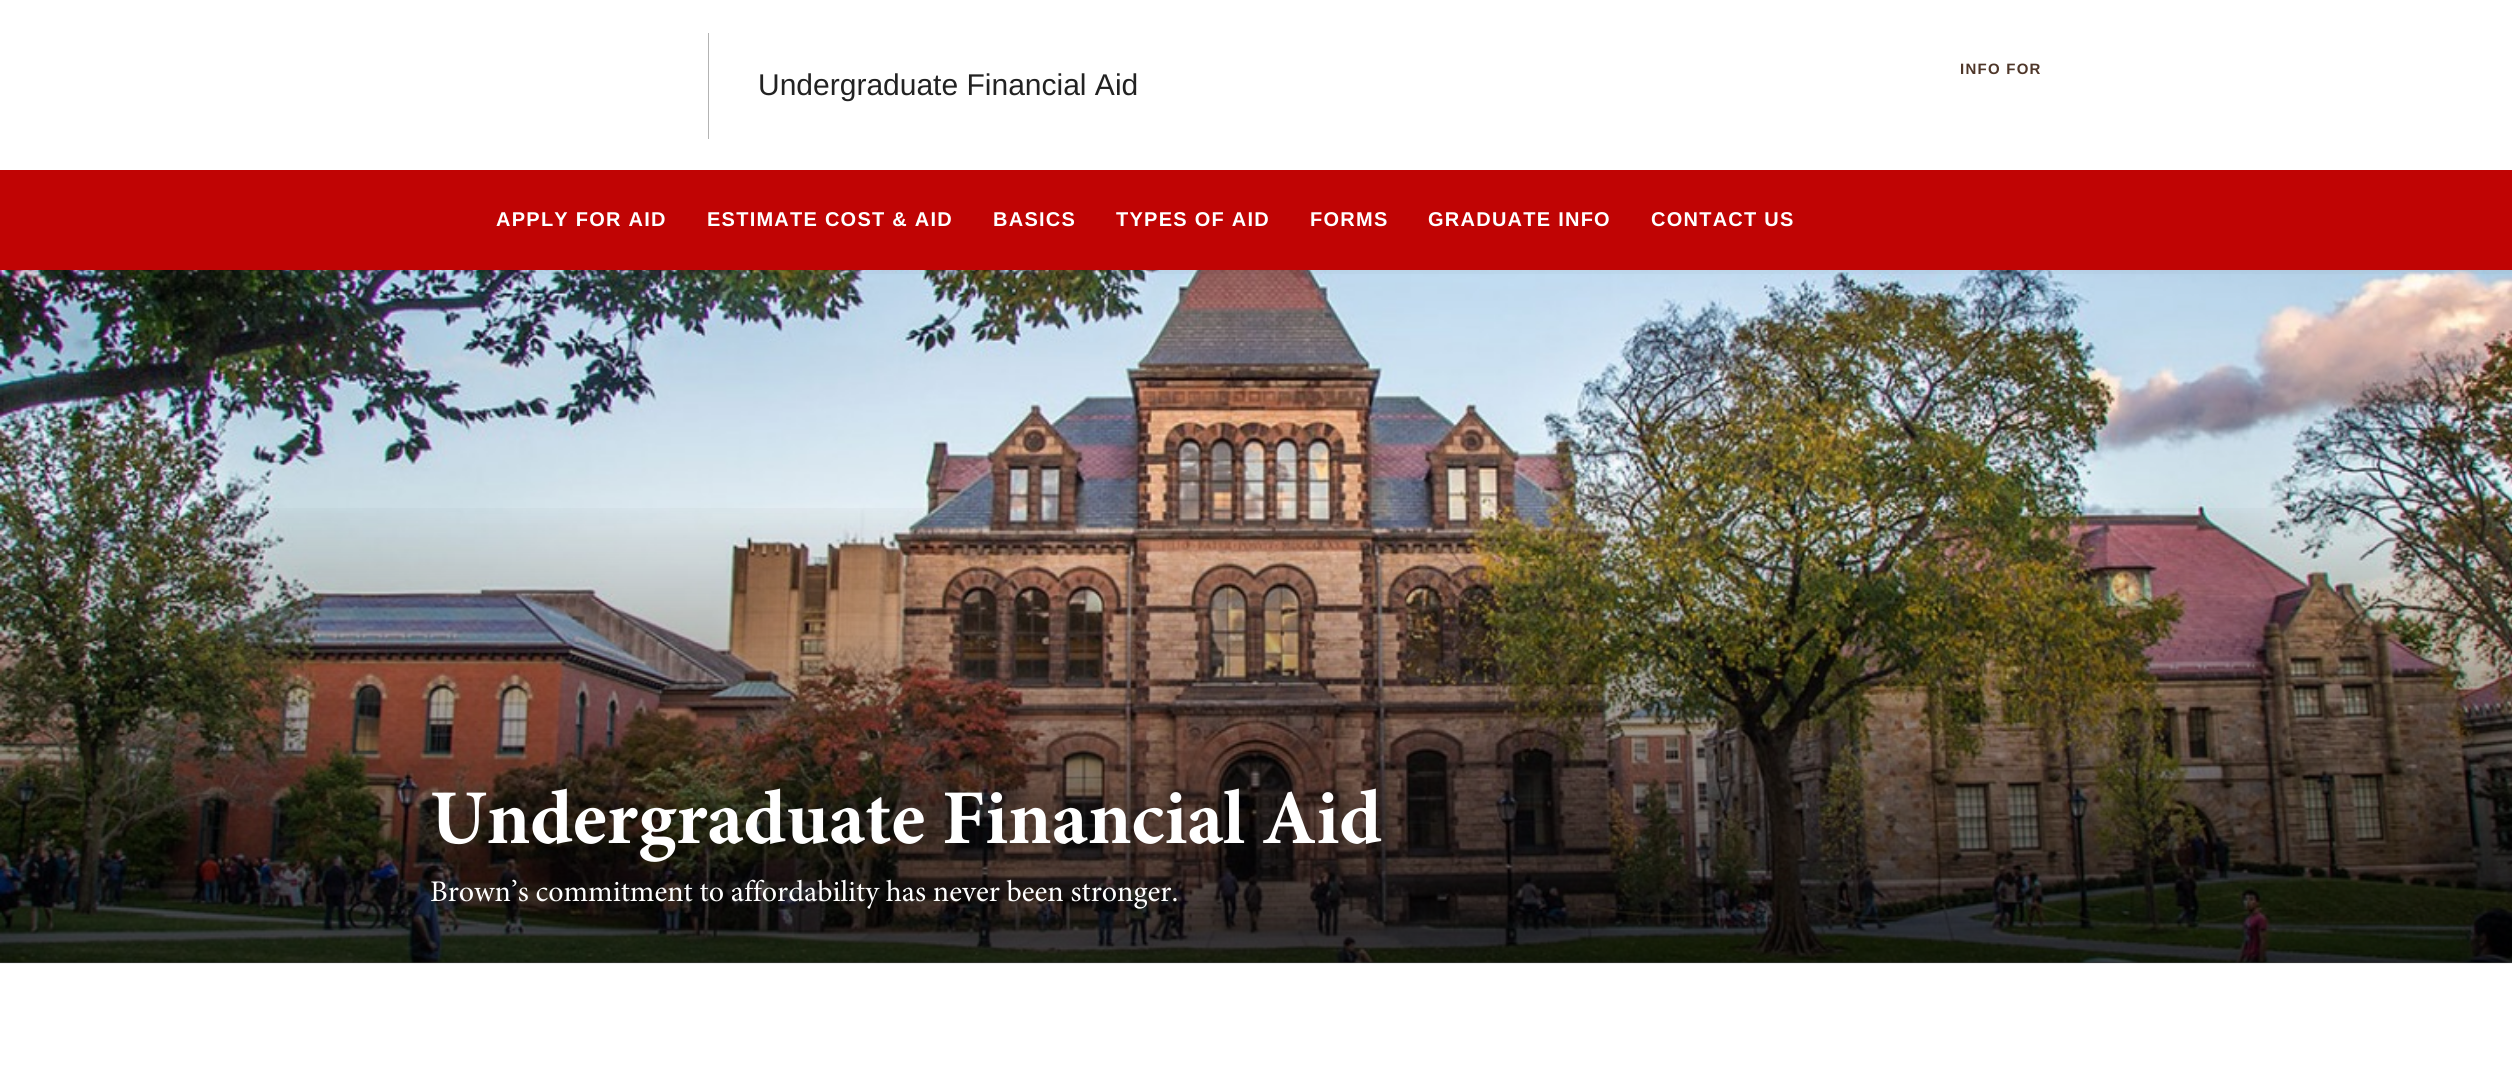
#include <cairo/cairo.h>
#include <math.h>
#include <stddef.h>

typedef struct { double x, y; const char *s; } line_t;
typedef struct { double x, y, w, h; unsigned color; } box_t;
static cairo_t *cr;

static void rgb(unsigned color)
{
	cairo_set_source_rgb(cr, (color >> 16) / 255.0, (color >> 8 & 255) / 255.0, (color & 255) / 255.0);
}

static void tracked(double x, double y, const char *s, double letter, double word)
{
	cairo_move_to(cr, x, y);
	while (*s) {
		char ch[5] = {0};
		int n = 0;
		do ch[n++] = *s++; while ((*s & 0xC0) == 0x80);
		cairo_show_text(cr, ch);
		cairo_rel_move_to(cr, letter + word * (*ch == ' '), 0);
	}
}

static void image(const char *path, double x, double y, double w, double h)
{
	cairo_surface_t *image = cairo_image_surface_create_from_png(path);
	cairo_save(cr);
	cairo_set_source_surface(cr, image, x, y);
	cairo_rectangle(cr, x, y, w, h);
	cairo_fill(cr);
	cairo_restore(cr);
	cairo_surface_destroy(image);
}

int main(void) {
	cairo_surface_t *surface = cairo_image_surface_create(CAIRO_FORMAT_RGB24, 2512, 1072);
	cr = cairo_create(surface);
	cairo_font_options_t *options = cairo_font_options_create();
	cairo_font_options_set_hint_metrics(options, CAIRO_HINT_METRICS_OFF);
	cairo_font_options_set_hint_style(options, CAIRO_HINT_STYLE_NONE);
	cairo_set_font_options(cr, options);
	cairo_set_miter_limit(cr, 4);
	cairo_pattern_t *gradient;
	rgb(0xffffff);
	cairo_paint(cr);
	{
		static const box_t items[] = {
			{708, 33, 1, 106, 0xb3b3b3},
			{0, 170, 2512, 100, 0xc00404},
			{0, 962, 2512, 1, 0xf8f7f5},
		};
		for (size_t i = 0; i < sizeof items / sizeof *items; i++) {
			rgb(items[i].color);
			cairo_rectangle(cr, items[i].x, items[i].y, items[i].w, items[i].h);
			cairo_fill(cr);
		}
	}
	image("img/1.png", 0, 270, 2512, 693);
	gradient = cairo_pattern_create_linear(1256, 270, 1256, 283);
	cairo_pattern_add_color_stop_rgba(gradient, 0, 0, 0, 0, 0.03);
	cairo_pattern_add_color_stop_rgba(gradient, 1, 0, 0, 0, 0);
	cairo_set_source(cr, gradient);
	cairo_pattern_destroy(gradient);
	cairo_rectangle(cr, 0, 270, 2512, 4);
	cairo_fill(cr);
	rgb(0xf0f2f3);
	cairo_rectangle(cr, 0, 963, 2512, 1);
	cairo_fill(cr);
	gradient = cairo_pattern_create_linear(1256, 1020, 1256, 270);
	cairo_pattern_add_color_stop_rgba(gradient, 0, 0, 0, 0, 0.85);
	cairo_pattern_add_color_stop_rgba(gradient, 0.7, 0, 0, 0, 0);
	cairo_set_source(cr, gradient);
	cairo_pattern_destroy(gradient);
	cairo_rectangle(cr, 0, 508, 2512, 455);
	cairo_fill(cr);
	cairo_select_font_face(cr, "Liberation Sans", CAIRO_FONT_SLANT_NORMAL, CAIRO_FONT_WEIGHT_BOLD);
	cairo_set_font_size(cr, 15);
	rgb(0x4e3629);
	tracked(1960, 74, "INFO FOR", 1.25, 0);
	cairo_select_font_face(cr, "Liberation Sans", CAIRO_FONT_SLANT_NORMAL, CAIRO_FONT_WEIGHT_NORMAL);
	cairo_set_font_size(cr, 30);
	rgb(0x222222);
	cairo_move_to(cr, 758, 95);
	cairo_show_text(cr, "Undergraduate Financial Aid");
	cairo_select_font_face(cr, "Liberation Sans", CAIRO_FONT_SLANT_NORMAL, CAIRO_FONT_WEIGHT_BOLD);
	cairo_set_font_size(cr, 20);
	rgb(0xffffff);
	{
		static const line_t items[] = {
			{496, 226, "APPLY FOR AID"},
			{707, 226, "ESTIMATE COST & AID"},
			{993, 226, "BASICS"},
			{1116, 226, "TYPES OF AID"},
			{1310, 226, "FORMS"},
			{1428, 226, "GRADUATE INFO"},
			{1651, 226, "CONTACT US"},
		};
		for (size_t i = 0; i < sizeof items / sizeof *items; i++) {
			tracked(items[i].x, items[i].y, items[i].s, 1.25, 0);
		}
	}
	cairo_select_font_face(cr, "Minion", CAIRO_FONT_SLANT_NORMAL, CAIRO_FONT_WEIGHT_BOLD);
	cairo_set_font_size(cr, 77.5);
	cairo_move_to(cr, 430, 843);
	cairo_show_text(cr, "Undergraduate Financial Aid");
	cairo_select_font_face(cr, "Minion", CAIRO_FONT_SLANT_NORMAL, CAIRO_FONT_WEIGHT_NORMAL);
	cairo_set_font_size(cr, 30);
	cairo_move_to(cr, 430, 901);
	cairo_show_text(cr, "Brown’s commitment to affordability has never been stronger.");
	cairo_surface_write_to_png(surface, "page.png");
	cairo_font_options_destroy(options);
	cairo_destroy(cr);
	cairo_surface_destroy(surface);
	return 0;
}
